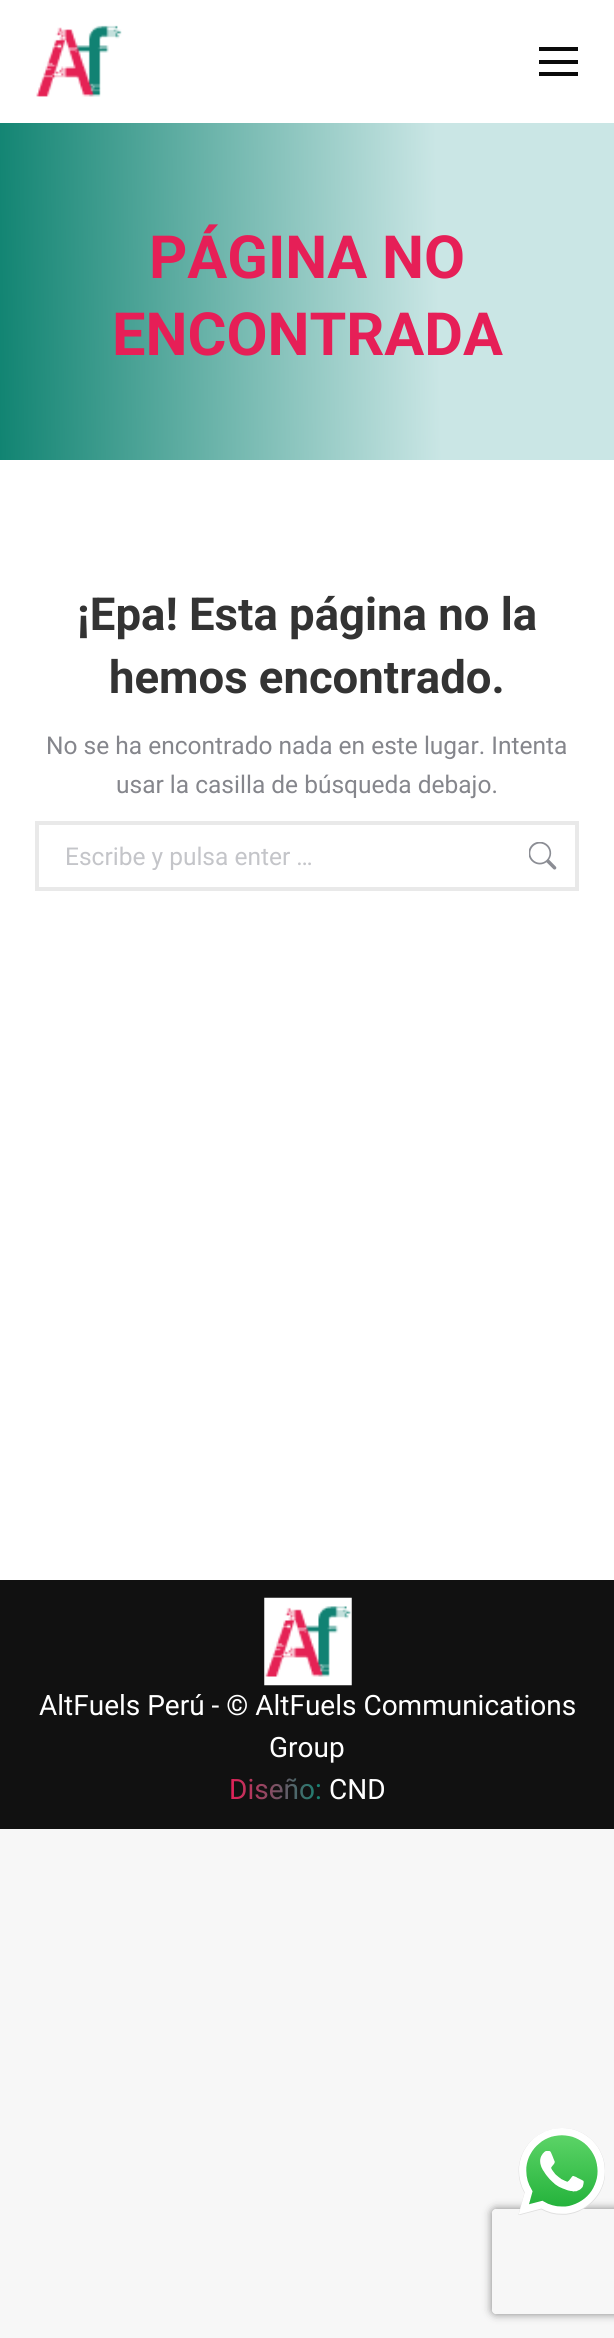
#include <cairo/cairo.h>
#include <math.h>
#include <stddef.h>

typedef struct { double x, y, w, h; unsigned color; } box_t;
static cairo_t *cr;

static void rgb(unsigned color)
{
	cairo_set_source_rgb(cr, (color >> 16) / 255.0, (color >> 8 & 255) / 255.0, (color & 255) / 255.0);
}

static void rrect(double x, double y, double w, double h, double r)
{
	cairo_new_sub_path(cr);
	cairo_arc(cr, x + w - r, y + h - r, r, 0, M_PI / 2);
	cairo_arc(cr, x + r, y + h - r, r, M_PI / 2, M_PI);
	cairo_arc(cr, x + r, y + r, r, M_PI, 1.5 * M_PI);
	cairo_arc(cr, x + w - r, y + r, r, 1.5 * M_PI, 2 * M_PI);
	cairo_close_path(cr);
}

static void soft_shadow(double x, double y, double w, double h, double r, double blur, double alpha)
{
	cairo_push_group_with_content(cr, CAIRO_CONTENT_ALPHA);
	cairo_set_operator(cr, CAIRO_OPERATOR_SOURCE);
	for (int i = 15; i >= -15 && fmin(w, h) + blur * i / 3 > 0; i -= 2) {
		double e = blur * i / 6;
		cairo_set_source_rgba(cr, 0, 0, 0, alpha * erfc((i - 1) / 8.5) / 2);
		rrect(x - e, y - e, w + 2 * e, h + 2 * e, fmax(0, fmin(r + e + blur * .6, fmin(w, h) / 2 + e)));
		cairo_fill(cr);
	}
	cairo_pattern_t *soft = cairo_pop_group(cr);
	cairo_mask(cr, soft);
	cairo_pattern_destroy(soft);
}

static void image(const char *path, double x, double y, double w, double h)
{
	cairo_surface_t *image = cairo_image_surface_create_from_png(path);
	cairo_save(cr);
	cairo_set_source_surface(cr, image, x, y);
	cairo_rectangle(cr, x, y, w, h);
	cairo_fill(cr);
	cairo_restore(cr);
	cairo_surface_destroy(image);
}

int main(void) {
	cairo_surface_t *surface = cairo_image_surface_create(CAIRO_FORMAT_RGB24, 614, 2338);
	cr = cairo_create(surface);
	cairo_font_options_t *options = cairo_font_options_create();
	cairo_font_options_set_hint_metrics(options, CAIRO_HINT_METRICS_OFF);
	cairo_font_options_set_hint_style(options, CAIRO_HINT_STYLE_NONE);
	cairo_set_font_options(cr, options);
	cairo_set_miter_limit(cr, 4);
	cairo_pattern_t *gradient;
	rgb(0xf7f7f7);
	cairo_paint(cr);
	rgb(0xffffff);
	cairo_rectangle(cr, 0, 460, 614, 1120);
	cairo_fill(cr);
	cairo_rectangle(cr, 0, 0, 614, 123);
	cairo_fill(cr);
	image("img/1.png", 36, 25, 86, 72);
	{
		static const box_t items[] = {
			{539, 47, 39, 4, 0x0a0a0a},
			{539, 60, 39, 4, 0x0a0a0a},
			{539, 72, 39, 4, 0x0a0a0a},
		};
		for (size_t i = 0; i < sizeof items / sizeof *items; i++) {
			rgb(items[i].color);
			cairo_rectangle(cr, items[i].x, items[i].y, items[i].w, items[i].h);
			cairo_fill(cr);
		}
	}
	gradient = cairo_pattern_create_linear(-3.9, 236, 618, 225);
	cairo_pattern_add_color_stop_rgba(gradient, 0, 0.067, 0.518, 0.447, 1);
	cairo_pattern_add_color_stop_rgba(gradient, 0.71, 0.792, 0.902, 0.898, 1);
	cairo_set_source(cr, gradient);
	cairo_pattern_destroy(gradient);
	cairo_rectangle(cr, 0, 123, 614, 337);
	cairo_fill(cr);
	cairo_rectangle(cr, 37, 823, 540, 66);
	rgb(0xe9e9e9);
	cairo_set_line_width(cr, 4);
	cairo_stroke(cr);
	image("img/2.png", 529, 842, 28, 28);
	rgb(0x111111);
	cairo_rectangle(cr, 0, 1580, 614, 249);
	cairo_fill(cr);
	image("img/3.png", 264, 1597, 88, 89);
	cairo_save(cr);
	cairo_set_fill_rule(cr, CAIRO_FILL_RULE_EVEN_ODD);
	cairo_new_path(cr);
	cairo_move_to(cr, 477, 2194);
	cairo_line_to(cr, 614, 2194);
	cairo_line_to(cr, 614, 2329);
	cairo_line_to(cr, 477, 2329);
	cairo_close_path(cr);
	cairo_move_to(cr, 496, 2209);
	cairo_line_to(cr, 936, 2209);
	cairo_curve_to(cr, 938, 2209, 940, 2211, 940, 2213);
	cairo_line_to(cr, 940, 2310);
	cairo_curve_to(cr, 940, 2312, 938, 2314, 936, 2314);
	cairo_line_to(cr, 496, 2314);
	cairo_curve_to(cr, 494, 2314, 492, 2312, 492, 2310);
	cairo_line_to(cr, 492, 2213);
	cairo_curve_to(cr, 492, 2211, 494, 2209, 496, 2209);
	cairo_close_path(cr);
	cairo_clip(cr);
	rgb(0x808080);
	soft_shadow(492, 2209, 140, 105, 4, 4.5, 1);
	cairo_restore(cr);
	image("img/4.png", 518, 2128, 87, 87);
	cairo_select_font_face(cr, "Roboto", CAIRO_FONT_SLANT_NORMAL, CAIRO_FONT_WEIGHT_BOLD);
	cairo_set_font_size(cr, 59.5);
	rgb(0xe61f57);
	cairo_move_to(cr, 149, 278);
	cairo_show_text(cr, "PÁGINA NO");
	cairo_move_to(cr, 112, 355);
	cairo_show_text(cr, "ENCONTRADA");
	cairo_set_font_size(cr, 45.5);
	rgb(0x333333);
	cairo_move_to(cr, 77, 630);
	cairo_show_text(cr, "¡Epa! Esta página no la");
	cairo_move_to(cr, 109, 693);
	cairo_show_text(cr, "hemos encontrado.");
	cairo_select_font_face(cr, "Roboto", CAIRO_FONT_SLANT_NORMAL, CAIRO_FONT_WEIGHT_NORMAL);
	cairo_set_font_size(cr, 24.5);
	rgb(0x85868c);
	cairo_move_to(cr, 46, 754);
	cairo_show_text(cr, "No se ha encontrado nada en este lugar. Intenta");
	cairo_move_to(cr, 116, 793);
	cairo_show_text(cr, "usar la casilla de búsqueda debajo.");
	cairo_save(cr);
	cairo_rectangle(cr, 65, 842, 458, 28);
	cairo_clip(cr);
	rgb(0xc4c5c9);
	cairo_move_to(cr, 65, 865);
	cairo_show_text(cr, "Escribe y pulsa enter …");
	cairo_restore(cr);
	cairo_set_font_size(cr, 28);
	rgb(0xffffff);
	cairo_move_to(cr, 39, 1715);
	cairo_show_text(cr, "AltFuels Perú - © AltFuels Communications");
	cairo_move_to(cr, 269, 1757);
	cairo_show_text(cr, "Group");
	gradient = cairo_pattern_create_linear(229, 1789, 322, 1789);
	cairo_pattern_add_color_stop_rgba(gradient, 0, 0.902, 0.122, 0.341, 1);
	cairo_pattern_add_color_stop_rgba(gradient, 1, 0.067, 0.518, 0.447, 1);
	cairo_set_source(cr, gradient);
	cairo_pattern_destroy(gradient);
	cairo_move_to(cr, 229, 1799);
	cairo_show_text(cr, "Diseño:");
	rgb(0xffffff);
	cairo_move_to(cr, 329, 1799);
	cairo_show_text(cr, "CND");
	cairo_surface_write_to_png(surface, "page.png");
	cairo_font_options_destroy(options);
	cairo_destroy(cr);
	cairo_surface_destroy(surface);
	return 0;
}
